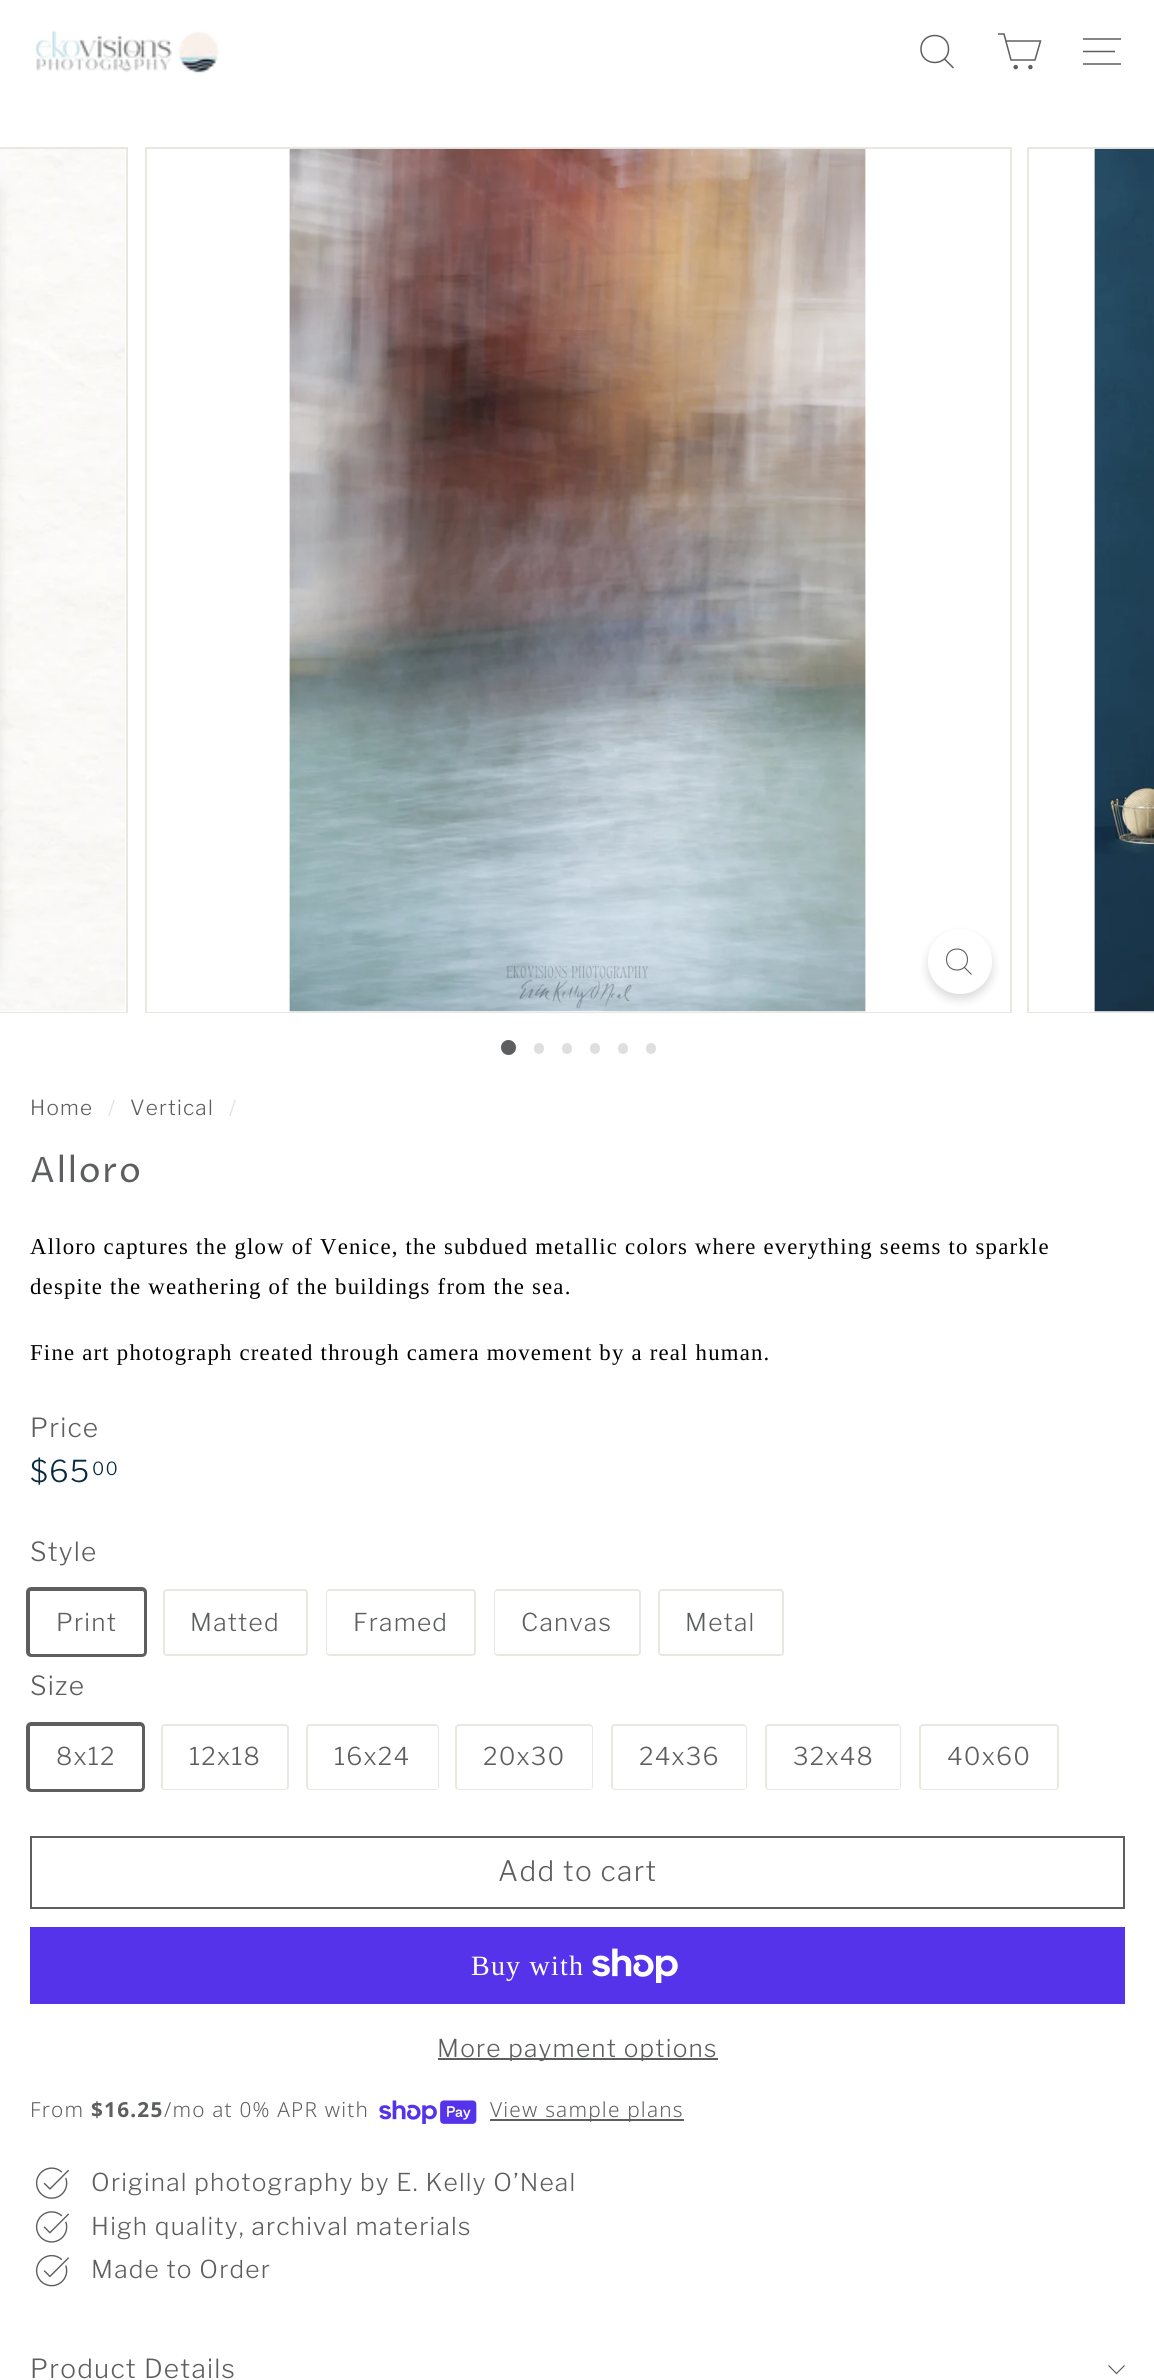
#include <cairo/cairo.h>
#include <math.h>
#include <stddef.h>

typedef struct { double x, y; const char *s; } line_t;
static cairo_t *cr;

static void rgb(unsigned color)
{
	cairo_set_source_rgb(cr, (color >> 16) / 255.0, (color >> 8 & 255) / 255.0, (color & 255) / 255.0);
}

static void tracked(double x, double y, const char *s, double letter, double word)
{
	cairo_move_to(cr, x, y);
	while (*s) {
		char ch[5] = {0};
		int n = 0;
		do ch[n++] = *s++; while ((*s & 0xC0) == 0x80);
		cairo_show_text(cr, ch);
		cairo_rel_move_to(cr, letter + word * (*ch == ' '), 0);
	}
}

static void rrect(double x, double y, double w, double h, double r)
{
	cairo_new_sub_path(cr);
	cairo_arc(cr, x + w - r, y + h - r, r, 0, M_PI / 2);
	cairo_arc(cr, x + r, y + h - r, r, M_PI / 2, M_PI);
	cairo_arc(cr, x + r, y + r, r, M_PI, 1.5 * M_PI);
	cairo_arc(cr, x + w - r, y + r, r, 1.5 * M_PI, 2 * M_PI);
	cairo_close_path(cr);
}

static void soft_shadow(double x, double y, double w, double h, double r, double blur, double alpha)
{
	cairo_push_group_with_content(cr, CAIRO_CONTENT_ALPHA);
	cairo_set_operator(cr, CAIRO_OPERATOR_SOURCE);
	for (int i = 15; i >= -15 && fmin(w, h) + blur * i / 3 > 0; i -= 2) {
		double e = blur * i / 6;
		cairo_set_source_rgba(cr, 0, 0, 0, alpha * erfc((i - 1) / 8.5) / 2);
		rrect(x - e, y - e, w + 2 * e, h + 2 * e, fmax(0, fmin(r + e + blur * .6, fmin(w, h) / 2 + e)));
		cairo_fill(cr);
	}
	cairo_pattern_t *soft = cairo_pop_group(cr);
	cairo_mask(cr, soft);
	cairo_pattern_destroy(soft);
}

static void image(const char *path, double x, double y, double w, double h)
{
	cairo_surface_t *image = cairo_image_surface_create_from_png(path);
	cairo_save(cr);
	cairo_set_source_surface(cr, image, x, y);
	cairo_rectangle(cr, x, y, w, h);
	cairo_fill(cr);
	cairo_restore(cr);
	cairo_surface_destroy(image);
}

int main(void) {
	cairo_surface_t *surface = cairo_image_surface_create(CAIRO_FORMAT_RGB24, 1154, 2380);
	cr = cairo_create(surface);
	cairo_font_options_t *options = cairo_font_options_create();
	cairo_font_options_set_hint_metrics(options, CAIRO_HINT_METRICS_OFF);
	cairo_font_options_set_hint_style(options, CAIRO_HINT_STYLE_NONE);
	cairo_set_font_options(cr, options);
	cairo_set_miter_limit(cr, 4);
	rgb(0xffffff);
	cairo_paint(cr);
	image("img/1.png", 35, 30, 184, 43);
	cairo_new_path(cr);
	cairo_move_to(cr, 948.5, 49);
	cairo_curve_to(cr, 948.5, 67, 921, 67, 921, 49);
	cairo_curve_to(cr, 921, 31, 948.5, 31, 948.5, 49);
	cairo_move_to(cr, 953.5, 68);
	cairo_line_to(cr, 944.5, 59);
	rgb(0x5d5e5f);
	cairo_set_line_width(cr, 1.5);
	cairo_stroke(cr);
	cairo_new_path(cr);
	cairo_move_to(cr, 1006, 41);
	cairo_line_to(cr, 1040.5, 41);
	cairo_line_to(cr, 1035, 60);
	cairo_line_to(cr, 1011, 60);
	cairo_line_to(cr, 1004, 34);
	cairo_line_to(cr, 998, 34);
	cairo_stroke(cr);
	cairo_arc(cr, 1015.7, 67.1, 1.5, 0, 2 * M_PI);
	cairo_fill_preserve(cr);
	cairo_stroke(cr);
	cairo_arc(cr, 1030.4, 67.1, 1.5, 0, 2 * M_PI);
	cairo_fill_preserve(cr);
	cairo_stroke(cr);
	rgb(0x868687);
	cairo_rectangle(cr, 1083, 38, 38, 2);
	cairo_fill(cr);
	cairo_new_path(cr);
	cairo_move_to(cr, 1083, 51.5);
	cairo_line_to(cr, 1115, 51.5);
	rgb(0x5d5e5f);
	cairo_stroke(cr);
	rgb(0x868687);
	cairo_rectangle(cr, 1083, 63, 38, 2);
	cairo_fill(cr);
	cairo_rectangle(cr, -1, 148, 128, 864);
	rgb(0xe8e8e1);
	cairo_set_line_width(cr, 2);
	cairo_stroke(cr);
	rgb(0xffffff);
	cairo_rectangle(cr, 0, 1011, 126, 1);
	cairo_fill(cr);
	image("img/2.png", 0, 149, 125, 862);
	cairo_rectangle(cr, 146, 148, 865, 864);
	rgb(0xe8e8e1);
	cairo_stroke(cr);
	rgb(0xffffff);
	cairo_rectangle(cr, 147, 1011, 863, 1);
	cairo_fill(cr);
	image("img/3.png", 289, 148, 577, 864);
	rgb(0x000000);
	soft_shadow(928, 935, 64, 64, 32, 5, 0.15);
	rgb(0xffffff);
	rrect(928, 929, 64, 65, 32);
	cairo_fill(cr);
	cairo_new_path(cr);
	cairo_move_to(cr, 967.5, 959.5);
	cairo_curve_to(cr, 967.5, 973.5, 946.5, 973.5, 946.5, 959.5);
	cairo_curve_to(cr, 946.5, 945.5, 967.5, 945.5, 967.5, 959.5);
	cairo_move_to(cr, 971.5, 974.5);
	cairo_line_to(cr, 964.5, 967.5);
	rgb(0x5d5e5f);
	cairo_set_line_width(cr, 1.1);
	cairo_stroke(cr);
	cairo_rectangle(cr, 1028, 148, 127, 864);
	rgb(0xe8e8e1);
	cairo_set_line_width(cr, 2);
	cairo_stroke(cr);
	rgb(0xffffff);
	cairo_rectangle(cr, 1029, 1011, 125, 1);
	cairo_fill(cr);
	image("img/4.png", 1094, 148, 60, 864);
	rgb(0x5d5e5f);
	cairo_arc(cr, 508.5, 1047.5, 7.5, 0, 2 * M_PI);
	cairo_fill(cr);
	rgb(0xdfdfdf);
	rrect(534, 1043, 10, 11, 5);
	cairo_fill(cr);
	rrect(562, 1043, 10, 11, 5);
	cairo_fill(cr);
	rrect(590, 1043, 10, 11, 5);
	cairo_fill(cr);
	rrect(618, 1043, 10, 11, 5);
	cairo_fill(cr);
	rrect(646, 1043, 10, 11, 5);
	cairo_fill(cr);
	rrect(28, 1589, 117, 66, 3);
	rgb(0x5d5e5f);
	cairo_set_line_width(cr, 4);
	cairo_stroke(cr);
	rgb(0xffffff);
	rrect(30, 1591, 114, 63, 2);
	cairo_fill(cr);
	rrect(164, 1590, 143, 65, 3);
	rgb(0xe8e8e1);
	cairo_set_line_width(cr, 2);
	cairo_stroke(cr);
	rgb(0xffffff);
	rrect(165, 1591, 141, 63, 2);
	cairo_fill(cr);
	rrect(327, 1590, 148, 65, 3);
	rgb(0xe8e8e1);
	cairo_stroke(cr);
	rgb(0xffffff);
	rrect(327, 1591, 147, 63, 2);
	cairo_fill(cr);
	rrect(495, 1590, 145, 65, 3);
	rgb(0xe8e8e1);
	cairo_stroke(cr);
	rgb(0xffffff);
	rrect(495, 1591, 144, 63, 2);
	cairo_fill(cr);
	rrect(659, 1590, 124, 65, 3);
	rgb(0xe8e8e1);
	cairo_stroke(cr);
	rgb(0xffffff);
	rrect(660, 1591, 122, 63, 2);
	cairo_fill(cr);
	rrect(28, 1724, 115, 66, 3);
	rgb(0x5d5e5f);
	cairo_set_line_width(cr, 4);
	cairo_stroke(cr);
	rgb(0xffffff);
	rrect(30, 1726, 112, 63, 2);
	cairo_fill(cr);
	rrect(162, 1725, 126, 64, 3);
	rgb(0xe8e8e1);
	cairo_set_line_width(cr, 2);
	cairo_stroke(cr);
	rgb(0xffffff);
	rrect(163, 1726, 124, 63, 2);
	cairo_fill(cr);
	rrect(307, 1725, 131, 64, 3);
	rgb(0xe8e8e1);
	cairo_stroke(cr);
	rgb(0xffffff);
	rrect(308, 1726, 130, 63, 2);
	cairo_fill(cr);
	rrect(456, 1725, 136, 64, 3);
	rgb(0xe8e8e1);
	cairo_stroke(cr);
	rgb(0xffffff);
	rrect(457, 1726, 135, 63, 2);
	cairo_fill(cr);
	rrect(612, 1725, 134, 64, 3);
	rgb(0xe8e8e1);
	cairo_stroke(cr);
	rgb(0xffffff);
	rrect(613, 1726, 133, 63, 2);
	cairo_fill(cr);
	rrect(766, 1725, 134, 64, 3);
	rgb(0xe8e8e1);
	cairo_stroke(cr);
	rgb(0xffffff);
	rrect(767, 1726, 133, 63, 2);
	cairo_fill(cr);
	rrect(920, 1725, 138, 64, 3);
	rgb(0xe8e8e1);
	cairo_stroke(cr);
	rgb(0xffffff);
	rrect(921, 1726, 136, 63, 2);
	cairo_fill(cr);
	cairo_rectangle(cr, 31, 1837, 1093, 71);
	rgb(0x5d5e5f);
	cairo_stroke(cr);
	rgb(0x5433eb);
	cairo_rectangle(cr, 30, 1927, 1095, 77);
	cairo_fill(cr);
	image("img/5.png", 592, 1948, 86, 35);
	rgb(0x5d5e5f);
	cairo_rectangle(cr, 438, 2058, 280, 2);
	cairo_fill(cr);
	image("img/6.png", 379, 2100, 98, 24);
	cairo_rectangle(cr, 490, 2119, 194, 2);
	cairo_fill(cr);
	image("img/7.png", 35, 2167, 35, 32);
	image("img/8.png", 35, 2211, 35, 32);
	image("img/9.png", 35, 2254, 35, 33);
	cairo_new_path(cr);
	cairo_move_to(cr, 1108.5, 2365.5);
	cairo_line_to(cr, 1116.5, 2373.5);
	cairo_line_to(cr, 1124.5, 2365.5);
	cairo_set_line_width(cr, 1.2);
	cairo_stroke(cr);
	cairo_select_font_face(cr, "Libre Franklin Light", CAIRO_FONT_SLANT_NORMAL, CAIRO_FONT_WEIGHT_NORMAL);
	cairo_set_font_size(cr, 20.75);
	tracked(30, 1115, "Home", 1.22, 0);
	rgb(0xdfdfdf);
	tracked(108, 1115, "/", 1.22, 0);
	rgb(0x5d5e5f);
	tracked(130, 1115, "Vertical", 1.22, 0);
	rgb(0xdfdfdf);
	tracked(229, 1115, "/", 1.22, 0);
	cairo_select_font_face(cr, "Proza Libre", CAIRO_FONT_SLANT_NORMAL, CAIRO_FONT_WEIGHT_NORMAL);
	cairo_set_font_size(cr, 35);
	rgb(0x5d5e5f);
	tracked(30, 1182, "Alloro", 1.75, 0);
	cairo_select_font_face(cr, "Liberation Serif", CAIRO_FONT_SLANT_NORMAL, CAIRO_FONT_WEIGHT_NORMAL);
	cairo_set_font_size(cr, 22.75);
	rgb(0x000000);
	{
		static const line_t items[] = {
			{30, 1254, "Alloro captures the glow of Venice, the subdued metallic colors where everything seems to sparkle"},
			{30, 1294, "despite the weathering of the buildings from the sea."},
			{30, 1360, "Fine art photograph created through camera movement by a real human."},
		};
		for (size_t i = 0; i < sizeof items / sizeof *items; i++) {
			tracked(items[i].x, items[i].y, items[i].s, 1.22, 0);
		}
	}
	cairo_select_font_face(cr, "Libre Franklin Light", CAIRO_FONT_SLANT_NORMAL, CAIRO_FONT_WEIGHT_NORMAL);
	cairo_set_font_size(cr, 26.25);
	rgb(0x5d5e5f);
	tracked(30, 1437, "Price", 1.22, 0);
	cairo_set_font_size(cr, 30);
	rgb(0x082a40);
	tracked(30, 1482, "$65", 1.22, 0);
	cairo_set_font_size(cr, 18);
	tracked(92, 1475, "00", 1.22, 0);
	cairo_set_font_size(cr, 26.25);
	rgb(0x5d5e5f);
	tracked(30, 1561, "Style", 1.22, 0);
	cairo_set_font_size(cr, 24.5);
	{
		static const line_t items[] = {
			{56, 1631, "Print"},
			{190, 1631, "Matted"},
			{353, 1631, "Framed"},
			{521, 1631, "Canvas"},
			{685, 1631, "Metal"},
		};
		for (size_t i = 0; i < sizeof items / sizeof *items; i++) {
			tracked(items[i].x, items[i].y, items[i].s, 1.22, 0);
		}
	}
	cairo_set_font_size(cr, 26.25);
	tracked(30, 1695, "Size", 1.22, 0);
	cairo_set_font_size(cr, 24.5);
	{
		static const line_t items[] = {
			{56, 1765, "8x12"},
			{189, 1765, "12x18"},
			{334, 1765, "16x24"},
			{483, 1765, "20x30"},
			{639, 1765, "24x36"},
			{793, 1765, "32x48"},
			{947, 1765, "40x60"},
		};
		for (size_t i = 0; i < sizeof items / sizeof *items; i++) {
			tracked(items[i].x, items[i].y, items[i].s, 1.22, 0);
		}
	}
	cairo_set_font_size(cr, 28);
	tracked(498, 1881, "Add to cart", 1.4, 0);
	cairo_select_font_face(cr, "Liberation Serif", CAIRO_FONT_SLANT_NORMAL, CAIRO_FONT_WEIGHT_NORMAL);
	rgb(0xffffff);
	tracked(471, 1975, "Buy with", 1.22, 0);
	cairo_select_font_face(cr, "Libre Franklin Light", CAIRO_FONT_SLANT_NORMAL, CAIRO_FONT_WEIGHT_NORMAL);
	cairo_set_font_size(cr, 24.5);
	rgb(0x5d5e5f);
	tracked(437, 2057, "More payment options", 1.22, 0);
	cairo_select_font_face(cr, "Noto Sans Light", CAIRO_FONT_SLANT_NORMAL, CAIRO_FONT_WEIGHT_NORMAL);
	cairo_set_font_size(cr, 20.75);
	tracked(30, 2117, "From", 1.22, 0);
	cairo_select_font_face(cr, "Noto Sans", CAIRO_FONT_SLANT_NORMAL, CAIRO_FONT_WEIGHT_BOLD);
	tracked(91, 2117, "$16.25", 1.22, 0);
	cairo_select_font_face(cr, "Noto Sans Light", CAIRO_FONT_SLANT_NORMAL, CAIRO_FONT_WEIGHT_NORMAL);
	tracked(164, 2117, "/mo at 0% APR with", 1.22, 0);
	tracked(490, 2117, "View sample plans", 1.22, 0);
	cairo_select_font_face(cr, "Libre Franklin Light", CAIRO_FONT_SLANT_NORMAL, CAIRO_FONT_WEIGHT_NORMAL);
	cairo_set_font_size(cr, 24.5);
	{
		static const line_t items[] = {
			{91, 2191, "Original photography by E. Kelly O’Neal"},
			{91, 2235, "High quality, archival materials"},
			{91, 2278, "Made to Order"},
		};
		for (size_t i = 0; i < sizeof items / sizeof *items; i++) {
			tracked(items[i].x, items[i].y, items[i].s, 1.22, 0);
		}
	}
	cairo_set_font_size(cr, 26.25);
	tracked(30, 2378, "Product Details", 1.25, 0);
	cairo_surface_write_to_png(surface, "page.png");
	cairo_font_options_destroy(options);
	cairo_destroy(cr);
	cairo_surface_destroy(surface);
	return 0;
}
